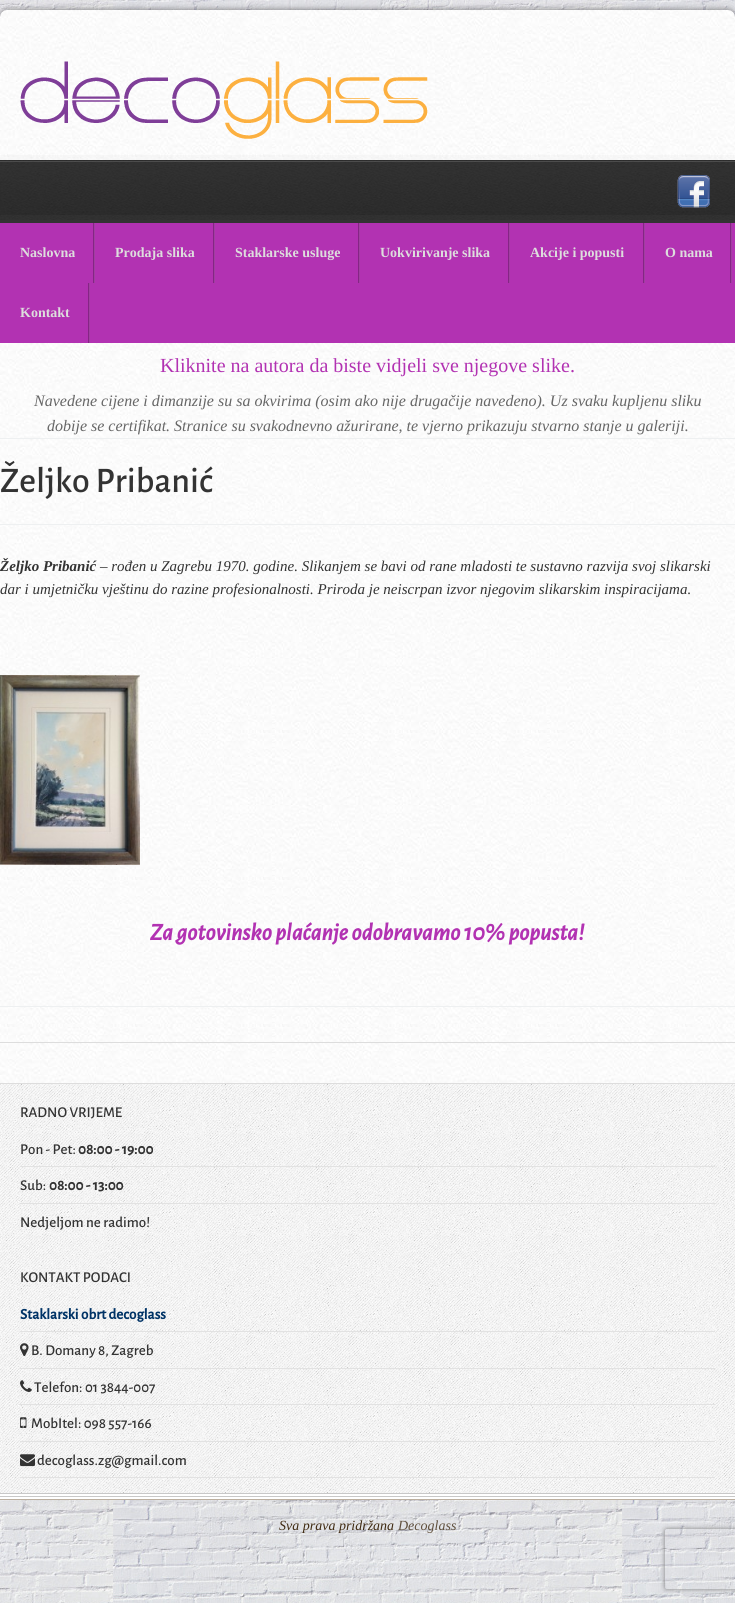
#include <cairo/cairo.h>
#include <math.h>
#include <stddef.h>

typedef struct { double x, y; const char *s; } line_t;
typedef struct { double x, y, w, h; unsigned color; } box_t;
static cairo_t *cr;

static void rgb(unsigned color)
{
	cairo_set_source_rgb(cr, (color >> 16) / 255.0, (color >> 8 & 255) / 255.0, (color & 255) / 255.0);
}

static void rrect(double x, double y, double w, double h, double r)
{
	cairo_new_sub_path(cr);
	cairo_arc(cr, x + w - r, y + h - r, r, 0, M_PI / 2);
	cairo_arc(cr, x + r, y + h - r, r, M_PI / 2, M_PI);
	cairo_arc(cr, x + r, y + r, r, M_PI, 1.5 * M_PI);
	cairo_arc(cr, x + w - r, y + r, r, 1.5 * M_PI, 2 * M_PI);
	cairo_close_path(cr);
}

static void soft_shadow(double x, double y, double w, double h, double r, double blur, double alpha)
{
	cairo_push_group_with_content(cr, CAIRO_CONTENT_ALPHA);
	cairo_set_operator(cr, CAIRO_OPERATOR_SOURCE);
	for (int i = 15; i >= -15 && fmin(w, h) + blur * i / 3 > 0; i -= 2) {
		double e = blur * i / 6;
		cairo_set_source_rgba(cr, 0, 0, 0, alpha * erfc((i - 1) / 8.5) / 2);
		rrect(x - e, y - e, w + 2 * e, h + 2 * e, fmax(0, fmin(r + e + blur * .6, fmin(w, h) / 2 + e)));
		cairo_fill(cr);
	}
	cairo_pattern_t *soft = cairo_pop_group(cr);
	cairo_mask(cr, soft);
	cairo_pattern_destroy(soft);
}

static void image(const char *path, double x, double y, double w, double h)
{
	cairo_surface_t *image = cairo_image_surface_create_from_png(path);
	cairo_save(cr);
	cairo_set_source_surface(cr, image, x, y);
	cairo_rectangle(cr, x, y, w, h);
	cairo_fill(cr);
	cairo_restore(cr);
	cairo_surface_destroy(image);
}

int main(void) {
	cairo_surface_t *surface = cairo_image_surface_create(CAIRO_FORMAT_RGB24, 735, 1603);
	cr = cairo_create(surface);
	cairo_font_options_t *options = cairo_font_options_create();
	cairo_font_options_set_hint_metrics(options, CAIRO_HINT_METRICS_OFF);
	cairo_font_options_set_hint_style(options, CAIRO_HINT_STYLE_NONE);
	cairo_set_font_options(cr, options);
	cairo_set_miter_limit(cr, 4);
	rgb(0xffffff);
	cairo_paint(cr);
	image("img/1.png", 0, 0, 735, 1603);
	rgb(0x000000);
	soft_shadow(0, 10, 735, 1483, 7, 3.5, 0.5);
	image("img/2.png", 0, 10, 735, 150);
	cairo_set_source_rgba(cr, 0.784, 0.784, 0.784, 0.1);
	cairo_rectangle(cr, 0, 155, 735, 5);
	cairo_fill(cr);
	image("img/3.png", 20, 61, 408, 78);
	image("img/5.png", 0, 160, 735, 60);
	image("img/4.png", 677, 175, 33, 33);
	rgb(0x333333);
	cairo_rectangle(cr, 0, 220, 735, 3);
	cairo_fill(cr);
	rgb(0xb232b2);
	cairo_rectangle(cr, 0, 223, 735, 120);
	cairo_fill(cr);
	image("img/6.png", 93, 223, 2, 60);
	image("img/6.png", 213, 223, 2, 60);
	image("img/6.png", 358, 223, 2, 60);
	image("img/6.png", 508, 223, 2, 60);
	image("img/6.png", 643, 223, 2, 60);
	image("img/6.png", 730, 223, 2, 60);
	image("img/6.png", 88, 283, 2, 60);
	image("img/7.png", 0, 343, 735, 95);
	rgb(0xeef0f1);
	cairo_rectangle(cr, 0, 438, 735, 1);
	cairo_fill(cr);
	image("img/8.png", 0, 439, 735, 603);
	cairo_rectangle(cr, 0, 524, 735, 1);
	cairo_fill(cr);
	image("img/9.png", 0, 675, 140, 190);
	cairo_rectangle(cr, 0, 1006, 735, 1);
	cairo_fill(cr);
	image("img/10.png", 0, 1043, 735, 40);
	rgb(0xdddddd);
	cairo_rectangle(cr, 0, 1042, 735, 1);
	cairo_fill(cr);
	image("img/11.png", 0, 1084, 735, 409);
	{
		static const box_t items[] = {
			{0, 1083, 735, 1, 0xdddddd},
			{20, 1166, 695, 1, 0xe2e2e2},
			{20, 1203, 695, 1, 0xe2e2e2},
			{20, 1331, 695, 1, 0xe2e2e2},
			{20, 1368, 695, 1, 0xe2e2e2},
		};
		for (size_t i = 0; i < sizeof items / sizeof *items; i++) {
			rgb(items[i].color);
			cairo_rectangle(cr, items[i].x, items[i].y, items[i].w, items[i].h);
			cairo_fill(cr);
		}
	}
	image("img/12.png", 20, 1343, 9, 13);
	cairo_rectangle(cr, 20, 1404, 695, 1);
	cairo_fill(cr);
	image("img/13.png", 20, 1380, 12, 12);
	cairo_rectangle(cr, 20, 1441, 695, 1);
	cairo_fill(cr);
	image("img/14.png", 20, 1417, 7, 11);
	cairo_rectangle(cr, 20, 1477, 695, 1);
	cairo_fill(cr);
	image("img/15.png", 20, 1454, 15, 13);
	image("img/16.png", 0, 1493, 735, 7);
	cairo_save(cr);
	cairo_set_fill_rule(cr, CAIRO_FILL_RULE_EVEN_ODD);
	cairo_new_path(cr);
	cairo_move_to(cr, 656, 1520);
	cairo_line_to(cr, 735, 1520);
	cairo_line_to(cr, 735, 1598);
	cairo_line_to(cr, 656, 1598);
	cairo_close_path(cr);
	cairo_move_to(cr, 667, 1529);
	cairo_line_to(cr, 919, 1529);
	cairo_curve_to(cr, 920, 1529, 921, 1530, 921, 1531);
	cairo_line_to(cr, 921, 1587);
	cairo_curve_to(cr, 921, 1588, 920, 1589, 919, 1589);
	cairo_line_to(cr, 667, 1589);
	cairo_curve_to(cr, 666, 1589, 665, 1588, 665, 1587);
	cairo_line_to(cr, 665, 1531);
	cairo_curve_to(cr, 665, 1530, 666, 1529, 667, 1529);
	cairo_close_path(cr);
	cairo_clip(cr);
	rgb(0x808080);
	soft_shadow(665, 1529, 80, 60, 2, 2.5, 1);
	cairo_restore(cr);
	cairo_select_font_face(cr, "Liberation Serif", CAIRO_FONT_SLANT_NORMAL, CAIRO_FONT_WEIGHT_BOLD);
	cairo_set_font_size(cr, 14);
	rgb(0xdddddd);
	{
		static const line_t items[] = {
			{20, 257, "Naslovna"},
			{115, 257, "Prodaja slika"},
			{235, 257, "Staklarske usluge"},
			{380, 257, "Uokvirivanje slika"},
			{530, 257, "Akcije i popusti"},
			{665, 257, "O nama"},
			{20, 317, "Kontakt"},
		};
		for (size_t i = 0; i < sizeof items / sizeof *items; i++) {
			cairo_move_to(cr, items[i].x, items[i].y);
			cairo_show_text(cr, items[i].s);
		}
	}
	cairo_select_font_face(cr, "Liberation Serif", CAIRO_FONT_SLANT_NORMAL, CAIRO_FONT_WEIGHT_NORMAL);
	cairo_set_font_size(cr, 20);
	rgb(0xb232b2);
	cairo_move_to(cr, 160, 372);
	cairo_show_text(cr, "Kliknite na autora da biste vidjeli sve njegove slike.");
	cairo_select_font_face(cr, "Liberation Serif", CAIRO_FONT_SLANT_ITALIC, CAIRO_FONT_WEIGHT_NORMAL);
	cairo_set_font_size(cr, 16);
	rgb(0x666666);
	cairo_move_to(cr, 34, 406);
	cairo_show_text(cr, "Navedene cijene i dimanzije su sa okvirima (osim ako nije drugačije navedeno). Uz svaku kupljenu sliku");
	cairo_move_to(cr, 47, 431);
	cairo_show_text(cr, "dobije se certifikat. Stranice su svakodnevno ažurirane, te vjerno prikazuju stvarno stanje u galeriji.");
	cairo_select_font_face(cr, "Alegreya Sans Medium", CAIRO_FONT_SLANT_NORMAL, CAIRO_FONT_WEIGHT_NORMAL);
	cairo_set_font_size(cr, 36);
	rgb(0x333333);
	cairo_move_to(cr, 0, 492);
	cairo_show_text(cr, "Željko Pribanić");
	cairo_select_font_face(cr, "Liberation Serif", CAIRO_FONT_SLANT_ITALIC, CAIRO_FONT_WEIGHT_BOLD);
	cairo_set_font_size(cr, 15);
	cairo_move_to(cr, 0, 571);
	cairo_show_text(cr, "Željko Pribanić");
	cairo_select_font_face(cr, "Liberation Serif", CAIRO_FONT_SLANT_ITALIC, CAIRO_FONT_WEIGHT_NORMAL);
	cairo_move_to(cr, 100, 571);
	cairo_show_text(cr, "– rođen u Zagrebu 1970. godine. Slikanjem se bavi od rane mladosti te sustavno razvija svoj slikarski");
	cairo_move_to(cr, 0, 594);
	cairo_show_text(cr, "dar i umjetničku vještinu do razine profesionalnosti. Priroda je neiscrpan izvor njegovim slikarskim inspiracijama.");
	cairo_select_font_face(cr, "Alegreya Sans", CAIRO_FONT_SLANT_ITALIC, CAIRO_FONT_WEIGHT_BOLD);
	cairo_set_font_size(cr, 24);
	rgb(0xb232b2);
	cairo_move_to(cr, 150, 940);
	cairo_show_text(cr, "Za gotovinsko plaćanje odobravamo 10% popusta!");
	cairo_select_font_face(cr, "Alegreya Sans Medium", CAIRO_FONT_SLANT_NORMAL, CAIRO_FONT_WEIGHT_NORMAL);
	cairo_set_font_size(cr, 15);
	rgb(0x333333);
	cairo_move_to(cr, 20, 1117);
	cairo_show_text(cr, "RADNO VRIJEME");
	cairo_move_to(cr, 20, 1154);
	cairo_show_text(cr, "Pon - Pet:");
	cairo_select_font_face(cr, "Alegreya Sans", CAIRO_FONT_SLANT_NORMAL, CAIRO_FONT_WEIGHT_BOLD);
	cairo_move_to(cr, 78, 1154);
	cairo_show_text(cr, "08:00 - 19:00");
	cairo_select_font_face(cr, "Alegreya Sans Medium", CAIRO_FONT_SLANT_NORMAL, CAIRO_FONT_WEIGHT_NORMAL);
	cairo_move_to(cr, 20, 1190);
	cairo_show_text(cr, "Sub:");
	cairo_select_font_face(cr, "Alegreya Sans", CAIRO_FONT_SLANT_NORMAL, CAIRO_FONT_WEIGHT_BOLD);
	cairo_move_to(cr, 49, 1190);
	cairo_show_text(cr, "08:00 - 13:00");
	cairo_select_font_face(cr, "Alegreya Sans Medium", CAIRO_FONT_SLANT_NORMAL, CAIRO_FONT_WEIGHT_NORMAL);
	cairo_move_to(cr, 20, 1227);
	cairo_show_text(cr, "Nedjeljom ne radimo!");
	cairo_move_to(cr, 20, 1282);
	cairo_show_text(cr, "KONTAKT PODACI");
	cairo_select_font_face(cr, "Alegreya Sans", CAIRO_FONT_SLANT_NORMAL, CAIRO_FONT_WEIGHT_BOLD);
	rgb(0x003366);
	cairo_move_to(cr, 20, 1319);
	cairo_show_text(cr, "Staklarski obrt decoglass");
	cairo_select_font_face(cr, "Alegreya Sans Medium", CAIRO_FONT_SLANT_NORMAL, CAIRO_FONT_WEIGHT_NORMAL);
	rgb(0x333333);
	{
		static const line_t items[] = {
			{31, 1355, "B. Domany 8, Zagreb"},
			{34, 1392, "Telefon: 01 3844-007"},
			{31, 1428, "MobItel: 098 557-166"},
			{37, 1465, "decoglass.zg@gmail.com"},
		};
		for (size_t i = 0; i < sizeof items / sizeof *items; i++) {
			cairo_move_to(cr, items[i].x, items[i].y);
			cairo_show_text(cr, items[i].s);
		}
	}
	cairo_select_font_face(cr, "Liberation Serif", CAIRO_FONT_SLANT_ITALIC, CAIRO_FONT_WEIGHT_NORMAL);
	cairo_set_font_size(cr, 14);
	rgb(0x3e2911);
	cairo_move_to(cr, 279, 1530);
	cairo_show_text(cr, "Sva prava pridržana");
	rgb(0x5f4f3d);
	cairo_move_to(cr, 398, 1530);
	cairo_show_text(cr, "Decoglass");
	cairo_surface_write_to_png(surface, "page.png");
	cairo_font_options_destroy(options);
	cairo_destroy(cr);
	cairo_surface_destroy(surface);
	return 0;
}
